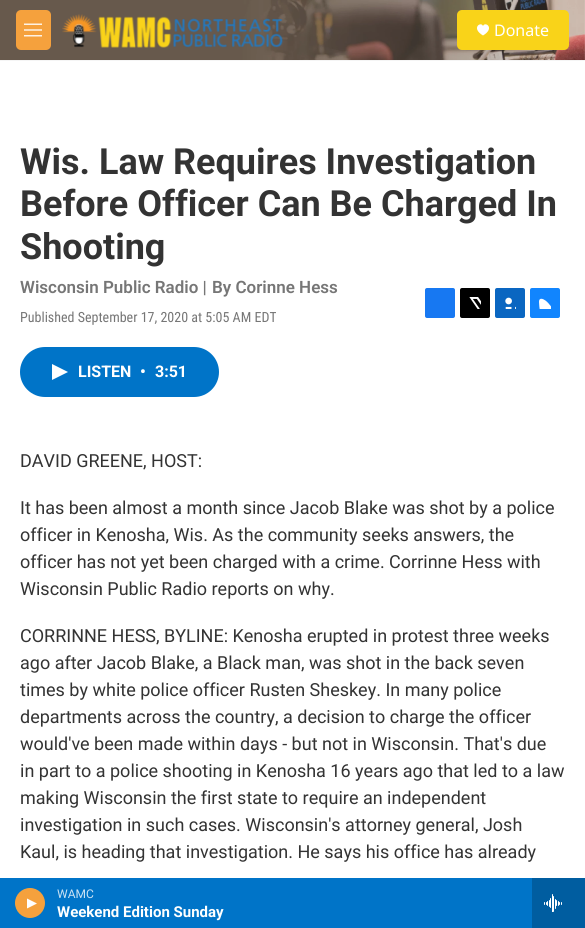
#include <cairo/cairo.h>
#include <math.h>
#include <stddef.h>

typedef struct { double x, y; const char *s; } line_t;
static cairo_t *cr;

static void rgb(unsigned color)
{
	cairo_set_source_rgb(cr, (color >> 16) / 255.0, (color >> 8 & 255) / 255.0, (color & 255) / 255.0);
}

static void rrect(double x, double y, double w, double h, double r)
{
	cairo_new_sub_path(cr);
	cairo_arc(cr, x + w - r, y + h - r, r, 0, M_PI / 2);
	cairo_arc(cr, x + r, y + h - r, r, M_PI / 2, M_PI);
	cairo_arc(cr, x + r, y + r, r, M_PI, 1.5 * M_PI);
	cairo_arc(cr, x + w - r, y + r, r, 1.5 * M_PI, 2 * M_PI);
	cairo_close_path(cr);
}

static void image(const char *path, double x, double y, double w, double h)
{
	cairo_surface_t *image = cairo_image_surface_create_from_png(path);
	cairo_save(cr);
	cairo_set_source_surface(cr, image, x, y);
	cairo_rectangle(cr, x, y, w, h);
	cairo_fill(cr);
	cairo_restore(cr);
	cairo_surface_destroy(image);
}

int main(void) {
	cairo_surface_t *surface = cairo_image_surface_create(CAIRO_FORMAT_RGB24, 585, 928);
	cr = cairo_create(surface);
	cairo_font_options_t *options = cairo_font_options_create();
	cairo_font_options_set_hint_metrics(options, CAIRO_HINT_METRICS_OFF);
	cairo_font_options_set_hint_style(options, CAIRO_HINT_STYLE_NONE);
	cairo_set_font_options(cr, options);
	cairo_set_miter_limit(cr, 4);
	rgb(0xffffff);
	cairo_paint(cr);
	rgb(0xf5f5f5);
	cairo_rectangle(cr, 0, 60, 585, 1);
	cairo_fill(cr);
	image("img/1.png", 0, 0, 585, 60);
	rgb(0xf5a13d);
	rrect(16, 10, 35, 40, 5);
	cairo_fill(cr);
	image("img/2.png", 24, 23, 18, 14);
	image("img/3.png", 62, 14, 221, 34);
	rgb(0xf9d319);
	rrect(457, 10, 112, 40, 5);
	cairo_fill(cr);
	rgb(0xffffff);
	cairo_new_path(cr);
	cairo_move_to(cr, 483, 26);
	cairo_curve_to(cr, 481, 21, 470.5, 28, 483, 35.5);
	cairo_curve_to(cr, 495.5, 28, 485, 21, 483, 26);
	cairo_close_path(cr);
	cairo_fill(cr);
	rgb(0x0074c8);
	cairo_rectangle(cr, 0, 878, 532, 50);
	cairo_fill(cr);
	rgb(0xf5a13d);
	cairo_arc(cr, 30, 903, 15, 0, 2 * M_PI);
	cairo_fill(cr);
	rgb(0xffffff);
	cairo_new_path(cr);
	cairo_move_to(cr, 27, 898.5);
	cairo_line_to(cr, 37, 903.5);
	cairo_line_to(cr, 27, 908.5);
	cairo_close_path(cr);
	cairo_fill(cr);
	rgb(0x005da0);
	cairo_rectangle(cr, 532, 878, 53, 50);
	cairo_fill(cr);
	image("img/4.png", 544, 894, 18, 18);
	rgb(0x1778f2);
	rrect(425, 288, 30, 30, 2);
	cairo_fill(cr);
	rgb(0x000000);
	rrect(460, 288, 30, 30, 2);
	cairo_fill(cr);
	image("img/5.png", 469, 297, 12, 12);
	rgb(0x0a66c1);
	rrect(495, 288, 30, 30, 2);
	cairo_fill(cr);
	image("img/6.png", 505, 297, 11, 12);
	rgb(0x1185fe);
	rrect(530, 288, 30, 30, 2);
	cairo_fill(cr);
	image("img/7.png", 539, 298, 12, 11);
	rgb(0x0074c8);
	rrect(20, 347, 199, 50, 25);
	cairo_fill(cr);
	rgb(0xffffff);
	cairo_new_path(cr);
	cairo_move_to(cr, 52, 364);
	cairo_line_to(cr, 68, 372);
	cairo_line_to(cr, 52, 380);
	cairo_close_path(cr);
	cairo_fill(cr);
	cairo_select_font_face(cr, "Noto Sans", CAIRO_FONT_SLANT_NORMAL, CAIRO_FONT_WEIGHT_NORMAL);
	cairo_set_font_size(cr, 16);
	cairo_move_to(cr, 494, 36);
	cairo_show_text(cr, "Donate");
	cairo_select_font_face(cr, "Roboto", CAIRO_FONT_SLANT_NORMAL, CAIRO_FONT_WEIGHT_NORMAL);
	cairo_set_font_size(cr, 12);
	rgb(0xcce3f4);
	cairo_move_to(cr, 57, 898);
	cairo_show_text(cr, "WAMC");
	cairo_select_font_face(cr, "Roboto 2", CAIRO_FONT_SLANT_NORMAL, CAIRO_FONT_WEIGHT_BOLD);
	cairo_set_font_size(cr, 15);
	rgb(0xffffff);
	cairo_move_to(cr, 57, 917);
	cairo_show_text(cr, "Weekend Edition Sunday");
	cairo_select_font_face(cr, "Roboto", CAIRO_FONT_SLANT_NORMAL, CAIRO_FONT_WEIGHT_BOLD);
	cairo_set_font_size(cr, 36);
	rgb(0x333333);
	{
		static const line_t items[] = {
			{20, 174, "Wis. Law Requires Investigation"},
			{20, 216, "Before Officer Can Be Charged In"},
			{20, 259, "Shooting"},
		};
		for (size_t i = 0; i < sizeof items / sizeof *items; i++) {
			cairo_move_to(cr, items[i].x, items[i].y);
			cairo_show_text(cr, items[i].s);
		}
	}
	cairo_select_font_face(cr, "Roboto SemiBold", CAIRO_FONT_SLANT_NORMAL, CAIRO_FONT_WEIGHT_NORMAL);
	cairo_set_font_size(cr, 17);
	rgb(0x767676);
	cairo_move_to(cr, 20, 293);
	cairo_show_text(cr, "Wisconsin Public Radio |");
	cairo_move_to(cr, 212, 293);
	cairo_show_text(cr, "By Corinne Hess");
	cairo_select_font_face(cr, "Roboto Condensed", CAIRO_FONT_SLANT_NORMAL, CAIRO_FONT_WEIGHT_NORMAL);
	cairo_set_font_size(cr, 14);
	cairo_move_to(cr, 20, 322);
	cairo_show_text(cr, "Published September 17, 2020 at 5:05 AM EDT");
	cairo_select_font_face(cr, "Roboto 2", CAIRO_FONT_SLANT_NORMAL, CAIRO_FONT_WEIGHT_BOLD);
	cairo_set_font_size(cr, 16);
	rgb(0xffffff);
	{
		static const line_t items[] = {
			{78, 377, "LISTEN"},
			{140, 377, "•"},
			{155, 377, "3:51"},
		};
		for (size_t i = 0; i < sizeof items / sizeof *items; i++) {
			cairo_move_to(cr, items[i].x, items[i].y);
			cairo_show_text(cr, items[i].s);
		}
	}
	cairo_select_font_face(cr, "Roboto", CAIRO_FONT_SLANT_NORMAL, CAIRO_FONT_WEIGHT_NORMAL);
	cairo_set_font_size(cr, 18);
	rgb(0x333333);
	{
		static const line_t items[] = {
			{20, 467, "DAVID GREENE, HOST:"},
			{20, 514, "It has been almost a month since Jacob Blake was shot by a police"},
			{20, 541, "officer in Kenosha, Wis. As the community seeks answers, the"},
			{20, 568, "officer has not yet been charged with a crime. Corrinne Hess with"},
			{20, 595, "Wisconsin Public Radio reports on why."},
			{20, 642, "CORRINNE HESS, BYLINE: Kenosha erupted in protest three weeks"},
			{20, 669, "ago after Jacob Blake, a Black man, was shot in the back seven"},
			{20, 696, "times by white police officer Rusten Sheskey. In many police"},
			{20, 723, "departments across the country, a decision to charge the officer"},
			{20, 750, "would've been made within days - but not in Wisconsin. That's due"},
			{20, 777, "in part to a police shooting in Kenosha 16 years ago that led to a law"},
			{20, 804, "making Wisconsin the first state to require an independent"},
			{20, 831, "investigation in such cases. Wisconsin's attorney general, Josh"},
			{20, 858, "Kaul, is heading that investigation. He says his office has already"},
		};
		for (size_t i = 0; i < sizeof items / sizeof *items; i++) {
			cairo_move_to(cr, items[i].x, items[i].y);
			cairo_show_text(cr, items[i].s);
		}
	}
	cairo_surface_write_to_png(surface, "page.png");
	cairo_font_options_destroy(options);
	cairo_destroy(cr);
	cairo_surface_destroy(surface);
	return 0;
}
